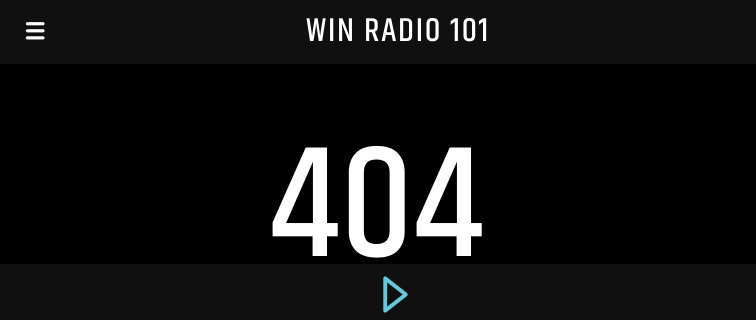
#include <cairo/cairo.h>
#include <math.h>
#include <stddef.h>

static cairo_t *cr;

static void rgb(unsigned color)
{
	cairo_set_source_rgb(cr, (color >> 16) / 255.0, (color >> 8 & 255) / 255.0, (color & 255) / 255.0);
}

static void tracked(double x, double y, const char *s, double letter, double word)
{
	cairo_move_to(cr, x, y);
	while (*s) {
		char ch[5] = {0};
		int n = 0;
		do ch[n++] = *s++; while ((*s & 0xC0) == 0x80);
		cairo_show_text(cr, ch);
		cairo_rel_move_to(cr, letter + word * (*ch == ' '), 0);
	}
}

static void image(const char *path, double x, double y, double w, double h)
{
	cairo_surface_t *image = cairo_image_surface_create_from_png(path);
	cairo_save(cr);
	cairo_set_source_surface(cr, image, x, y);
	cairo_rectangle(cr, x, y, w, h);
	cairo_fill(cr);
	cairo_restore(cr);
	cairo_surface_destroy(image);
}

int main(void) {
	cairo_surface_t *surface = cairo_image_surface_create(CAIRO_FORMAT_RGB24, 756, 320);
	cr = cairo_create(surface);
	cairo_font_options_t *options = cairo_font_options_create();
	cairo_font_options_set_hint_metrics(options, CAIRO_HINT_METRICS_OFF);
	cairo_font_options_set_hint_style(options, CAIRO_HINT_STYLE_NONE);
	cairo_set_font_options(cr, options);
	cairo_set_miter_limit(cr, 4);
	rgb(0x000000);
	cairo_paint(cr);
	rgb(0x101010);
	cairo_rectangle(cr, 0, 0, 756, 64);
	cairo_fill(cr);
	image("img/1.png", 25, 22, 20, 18);
	cairo_rectangle(cr, 0, 264, 756, 56);
	cairo_fill(cr);
	image("img/2.png", 383, 276, 25, 37);
	cairo_select_font_face(cr, "Khand Medium", CAIRO_FONT_SLANT_NORMAL, CAIRO_FONT_WEIGHT_NORMAL);
	cairo_set_font_size(cr, 33.5);
	rgb(0xffffff);
	tracked(306, 41, "WIN RADIO 101", 1.75, 0);
	cairo_set_font_size(cr, 160);
	tracked(271, 256, "404", 2, 0);
	cairo_surface_write_to_png(surface, "page.png");
	cairo_font_options_destroy(options);
	cairo_destroy(cr);
	cairo_surface_destroy(surface);
	return 0;
}
